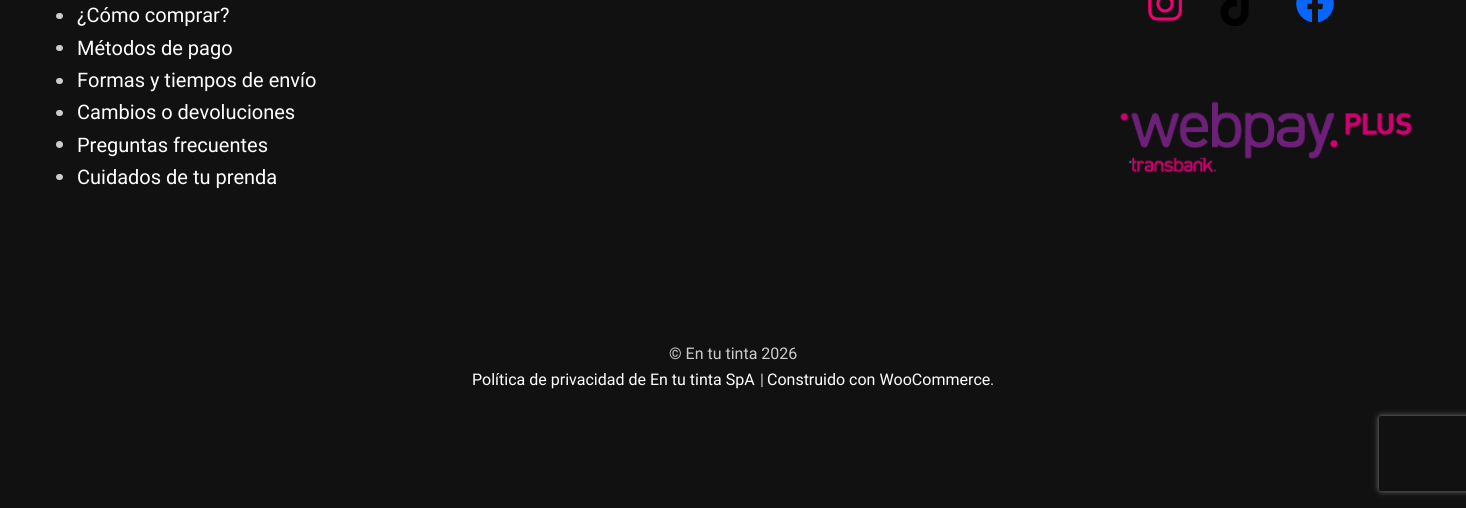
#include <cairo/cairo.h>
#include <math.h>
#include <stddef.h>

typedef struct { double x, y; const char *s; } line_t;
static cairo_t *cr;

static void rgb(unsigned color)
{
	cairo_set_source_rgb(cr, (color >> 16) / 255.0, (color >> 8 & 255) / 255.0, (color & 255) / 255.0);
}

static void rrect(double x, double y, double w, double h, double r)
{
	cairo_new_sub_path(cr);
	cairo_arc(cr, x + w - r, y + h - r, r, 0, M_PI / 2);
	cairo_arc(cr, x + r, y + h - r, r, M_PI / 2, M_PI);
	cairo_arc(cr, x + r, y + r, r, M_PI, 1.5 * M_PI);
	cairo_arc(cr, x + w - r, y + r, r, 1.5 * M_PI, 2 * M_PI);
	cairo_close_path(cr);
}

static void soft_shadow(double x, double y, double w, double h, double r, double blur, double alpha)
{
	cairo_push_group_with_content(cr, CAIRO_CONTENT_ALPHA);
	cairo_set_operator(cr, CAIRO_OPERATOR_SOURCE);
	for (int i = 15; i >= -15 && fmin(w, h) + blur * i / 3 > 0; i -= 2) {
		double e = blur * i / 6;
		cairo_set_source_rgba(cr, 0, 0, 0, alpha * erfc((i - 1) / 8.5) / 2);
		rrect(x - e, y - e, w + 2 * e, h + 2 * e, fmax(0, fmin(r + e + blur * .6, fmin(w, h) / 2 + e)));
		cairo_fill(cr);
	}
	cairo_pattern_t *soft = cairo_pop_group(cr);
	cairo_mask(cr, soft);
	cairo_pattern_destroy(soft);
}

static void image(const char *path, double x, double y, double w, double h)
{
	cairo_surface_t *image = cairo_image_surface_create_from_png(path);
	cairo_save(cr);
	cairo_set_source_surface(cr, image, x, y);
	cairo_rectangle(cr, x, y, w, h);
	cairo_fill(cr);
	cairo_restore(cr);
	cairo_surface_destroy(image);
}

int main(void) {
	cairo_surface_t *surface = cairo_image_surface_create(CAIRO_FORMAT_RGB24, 1466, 508);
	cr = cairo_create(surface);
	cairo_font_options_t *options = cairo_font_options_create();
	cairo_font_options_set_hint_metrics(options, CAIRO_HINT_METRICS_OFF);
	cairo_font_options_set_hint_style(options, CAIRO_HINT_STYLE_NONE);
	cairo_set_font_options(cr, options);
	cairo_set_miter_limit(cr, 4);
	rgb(0x111111);
	cairo_paint(cr);
	rgb(0xcccccc);
	rrect(56, 13, 7, 6, 3);
	cairo_fill(cr);
	rrect(56, 45, 7, 6, 3);
	cairo_fill(cr);
	rrect(56, 78, 7, 6, 3);
	cairo_fill(cr);
	rrect(56, 110, 7, 6, 3);
	cairo_fill(cr);
	cairo_arc(cr, 59.5, 144.5, 3.5, 0, 2 * M_PI);
	cairo_fill(cr);
	rrect(56, 174, 7, 6, 3);
	cairo_fill(cr);
	image("img/1.png", 1148, 0, 34, 21);
	image("img/2.png", 1220, 0, 29, 26);
	image("img/3.png", 1296, 0, 38, 23);
	image("img/4.png", 1120, 101, 292, 72);
	cairo_save(cr);
	cairo_set_fill_rule(cr, CAIRO_FILL_RULE_EVEN_ODD);
	cairo_new_path(cr);
	cairo_move_to(cr, 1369, 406);
	cairo_line_to(cr, 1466, 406);
	cairo_line_to(cr, 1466, 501);
	cairo_line_to(cr, 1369, 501);
	cairo_close_path(cr);
	cairo_move_to(cr, 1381.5, 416);
	cairo_line_to(cr, 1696.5, 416);
	cairo_curve_to(cr, 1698, 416, 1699, 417, 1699, 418.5);
	cairo_line_to(cr, 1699, 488.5);
	cairo_curve_to(cr, 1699, 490, 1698, 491, 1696.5, 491);
	cairo_line_to(cr, 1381.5, 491);
	cairo_curve_to(cr, 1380, 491, 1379, 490, 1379, 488.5);
	cairo_line_to(cr, 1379, 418.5);
	cairo_curve_to(cr, 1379, 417, 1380, 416, 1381.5, 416);
	cairo_close_path(cr);
	cairo_clip(cr);
	rgb(0x808080);
	soft_shadow(1379, 416, 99, 75, 2.5, 3, 1);
	cairo_restore(cr);
	cairo_select_font_face(cr, "Roboto", CAIRO_FONT_SLANT_NORMAL, CAIRO_FONT_WEIGHT_NORMAL);
	cairo_set_font_size(cr, 20);
	rgb(0xffffff);
	{
		static const line_t items[] = {
			{77, 22, "¿Cómo comprar?"},
			{77, 55, "Métodos de pago"},
			{77, 87, "Formas y tiempos de envío"},
			{77, 119, "Cambios o devoluciones"},
			{77, 152, "Preguntas frecuentes"},
			{77, 184, "Cuidados de tu prenda"},
		};
		for (size_t i = 0; i < sizeof items / sizeof *items; i++) {
			cairo_move_to(cr, items[i].x, items[i].y);
			cairo_show_text(cr, items[i].s);
		}
	}
	cairo_set_font_size(cr, 16);
	rgb(0xcccccc);
	cairo_move_to(cr, 669, 359);
	cairo_show_text(cr, "© En tu tinta 2026");
	rgb(0xffffff);
	cairo_move_to(cr, 472, 385);
	cairo_show_text(cr, "Política de privacidad de En tu tinta SpA");
	rgb(0xcccccc);
	cairo_move_to(cr, 760, 385);
	cairo_show_text(cr, "|");
	rgb(0xffffff);
	cairo_move_to(cr, 767, 385);
	cairo_show_text(cr, "Construido con WooCommerce");
	rgb(0xcccccc);
	cairo_move_to(cr, 990, 385);
	cairo_show_text(cr, ".");
	cairo_surface_write_to_png(surface, "page.png");
	cairo_font_options_destroy(options);
	cairo_destroy(cr);
	cairo_surface_destroy(surface);
	return 0;
}
